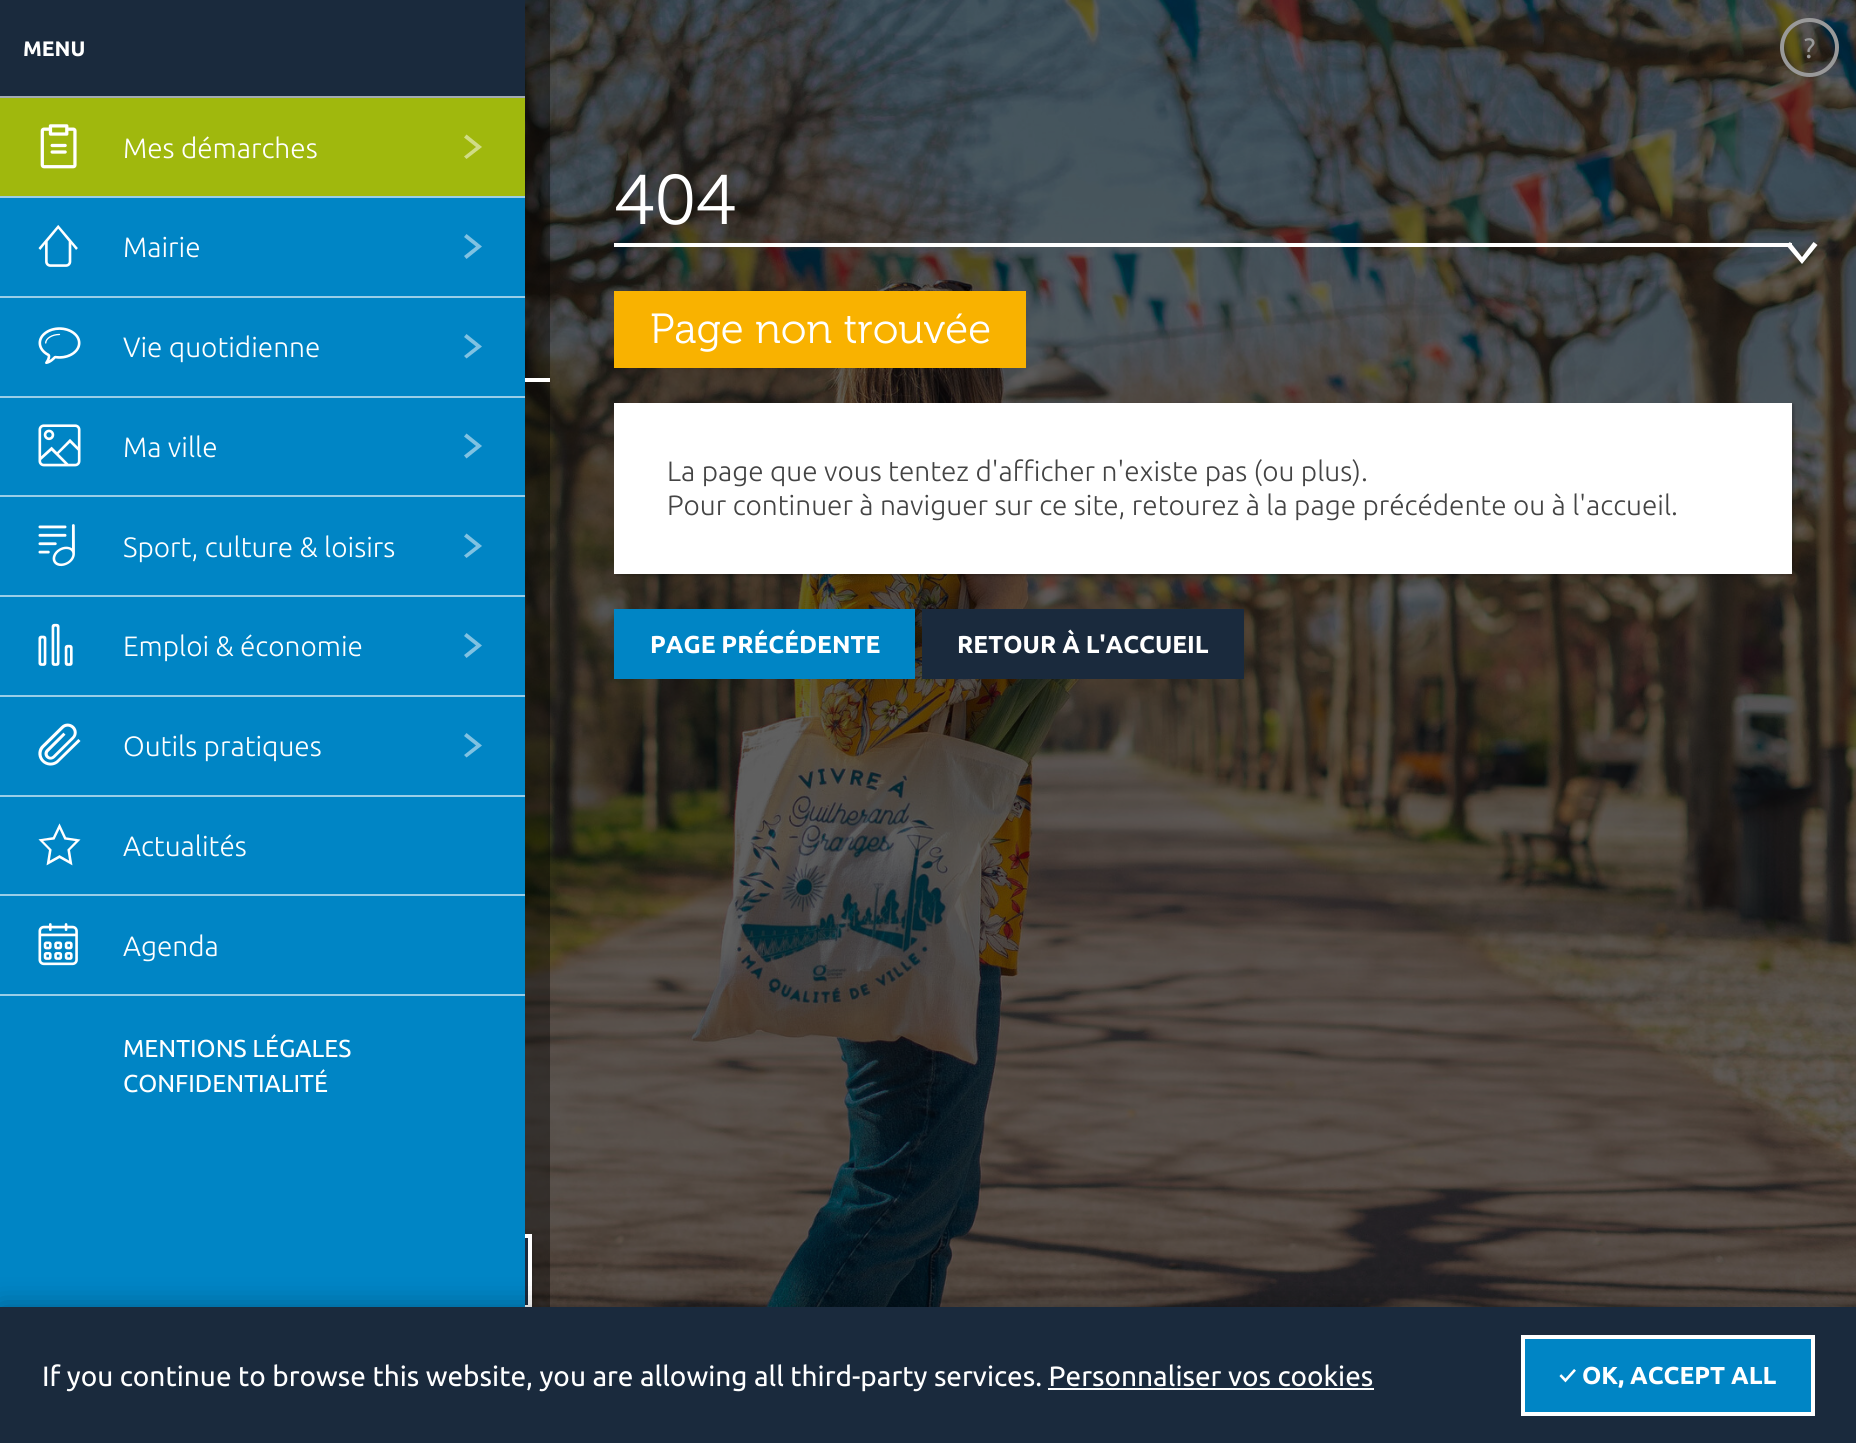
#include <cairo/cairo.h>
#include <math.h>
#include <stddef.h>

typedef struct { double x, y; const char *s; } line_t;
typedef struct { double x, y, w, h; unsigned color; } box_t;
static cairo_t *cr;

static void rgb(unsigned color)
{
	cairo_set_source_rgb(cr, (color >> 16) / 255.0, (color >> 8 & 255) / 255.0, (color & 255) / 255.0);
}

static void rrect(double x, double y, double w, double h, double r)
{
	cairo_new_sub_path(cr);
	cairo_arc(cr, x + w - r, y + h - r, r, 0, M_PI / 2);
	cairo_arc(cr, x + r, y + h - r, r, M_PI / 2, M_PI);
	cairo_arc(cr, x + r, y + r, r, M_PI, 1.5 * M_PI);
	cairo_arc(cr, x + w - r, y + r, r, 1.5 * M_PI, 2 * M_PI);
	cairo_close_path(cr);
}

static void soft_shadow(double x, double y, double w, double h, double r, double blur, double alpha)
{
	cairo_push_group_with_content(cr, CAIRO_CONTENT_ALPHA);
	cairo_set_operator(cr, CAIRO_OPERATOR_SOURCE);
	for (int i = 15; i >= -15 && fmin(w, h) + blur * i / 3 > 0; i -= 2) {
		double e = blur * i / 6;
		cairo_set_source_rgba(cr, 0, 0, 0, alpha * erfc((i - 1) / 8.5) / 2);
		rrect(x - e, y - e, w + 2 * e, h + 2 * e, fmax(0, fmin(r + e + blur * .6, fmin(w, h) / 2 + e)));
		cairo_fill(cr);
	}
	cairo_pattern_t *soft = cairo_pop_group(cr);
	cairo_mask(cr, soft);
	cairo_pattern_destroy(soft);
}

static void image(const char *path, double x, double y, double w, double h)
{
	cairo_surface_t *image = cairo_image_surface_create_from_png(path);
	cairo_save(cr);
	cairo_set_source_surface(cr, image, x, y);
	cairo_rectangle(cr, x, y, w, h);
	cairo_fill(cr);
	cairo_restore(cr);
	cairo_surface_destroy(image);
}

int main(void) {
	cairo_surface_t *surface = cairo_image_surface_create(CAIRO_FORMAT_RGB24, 1856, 1443);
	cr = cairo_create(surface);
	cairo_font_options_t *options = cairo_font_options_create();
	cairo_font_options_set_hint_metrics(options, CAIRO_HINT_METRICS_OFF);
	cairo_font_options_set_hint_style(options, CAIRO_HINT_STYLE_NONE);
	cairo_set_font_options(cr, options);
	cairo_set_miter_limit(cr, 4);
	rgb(0xffffff);
	cairo_paint(cr);
	image("img/10.png", 525, 0, 1331, 1307);
	cairo_set_source_rgba(cr, 0, 0, 0, 0.4);
	cairo_rectangle(cr, 525, 0, 25, 1307);
	cairo_fill(cr);
	rgb(0x000000);
	soft_shadow(133, 1236, 401, 75, 0, 1, 0.1);
	rgb(0x1a2a3d);
	cairo_rectangle(cr, 525, 1238, 3, 67);
	cairo_fill(cr);
	cairo_rectangle(cr, 133, 1236, 397, 71);
	rgb(0xffffff);
	cairo_set_line_width(cr, 4);
	cairo_stroke(cr);
	{
		static const box_t items[] = {
			{0, 198, 525, 1109, 0x0085c5},
			{0, 0, 525, 96, 0x1a2a3d},
			{0, 96, 525, 2, 0xa3aab1},
			{0, 196, 525, 2, 0x99cee8},
			{0, 98, 525, 98, 0xa0b80d},
		};
		for (size_t i = 0; i < sizeof items / sizeof *items; i++) {
			rgb(items[i].color);
			cairo_rectangle(cr, items[i].x, items[i].y, items[i].w, items[i].h);
			cairo_fill(cr);
		}
	}
	image("img/1.png", 40, 124, 37, 45);
	rgb(0xd0dc86);
	cairo_new_path(cr);
	cairo_move_to(cr, 464, 137.5);
	cairo_line_to(cr, 476, 147);
	cairo_line_to(cr, 464, 156.5);
	cairo_line_to(cr, 466.5, 159);
	cairo_line_to(cr, 482, 147);
	cairo_line_to(cr, 466.5, 134.5);
	cairo_close_path(cr);
	cairo_fill(cr);
	rgb(0x99cee8);
	cairo_rectangle(cr, 0, 296, 525, 2);
	cairo_fill(cr);
	image("img/2.png", 38, 225, 40, 42);
	rgb(0x80c2e2);
	cairo_new_path(cr);
	cairo_move_to(cr, 464, 237);
	cairo_line_to(cr, 476, 246.5);
	cairo_line_to(cr, 464, 256);
	cairo_line_to(cr, 466.5, 259);
	cairo_line_to(cr, 482, 246.5);
	cairo_line_to(cr, 466.5, 234);
	cairo_close_path(cr);
	cairo_fill(cr);
	rgb(0x99cee8);
	cairo_rectangle(cr, 0, 396, 525, 2);
	cairo_fill(cr);
	image("img/3.png", 38, 327, 43, 37);
	rgb(0x80c2e2);
	cairo_new_path(cr);
	cairo_move_to(cr, 464, 337);
	cairo_line_to(cr, 476, 346.5);
	cairo_line_to(cr, 464, 356);
	cairo_line_to(cr, 466.5, 358.5);
	cairo_line_to(cr, 482, 346.5);
	cairo_line_to(cr, 466.5, 334);
	cairo_close_path(cr);
	cairo_fill(cr);
	rgb(0x99cee8);
	cairo_rectangle(cr, 0, 495, 525, 2);
	cairo_fill(cr);
	image("img/4.png", 38, 424, 43, 43);
	rgb(0x80c2e2);
	cairo_new_path(cr);
	cairo_move_to(cr, 464, 436.5);
	cairo_line_to(cr, 476, 446);
	cairo_line_to(cr, 464, 455.5);
	cairo_line_to(cr, 466.5, 458.5);
	cairo_line_to(cr, 482, 446);
	cairo_line_to(cr, 466.5, 433.5);
	cairo_close_path(cr);
	cairo_fill(cr);
	rgb(0x99cee8);
	cairo_rectangle(cr, 0, 595, 525, 2);
	cairo_fill(cr);
	image("img/5.png", 38, 524, 37, 43);
	rgb(0x80c2e2);
	cairo_new_path(cr);
	cairo_move_to(cr, 464, 536.5);
	cairo_line_to(cr, 476, 546);
	cairo_line_to(cr, 464, 555.5);
	cairo_line_to(cr, 466.5, 558);
	cairo_line_to(cr, 482, 546);
	cairo_line_to(cr, 466.5, 533.5);
	cairo_close_path(cr);
	cairo_fill(cr);
	rgb(0x99cee8);
	cairo_rectangle(cr, 0, 695, 525, 2);
	cairo_fill(cr);
	image("img/6.png", 38, 623, 35, 43);
	rgb(0x80c2e2);
	cairo_new_path(cr);
	cairo_move_to(cr, 464, 636);
	cairo_line_to(cr, 476, 645.5);
	cairo_line_to(cr, 464, 655);
	cairo_line_to(cr, 466.5, 658);
	cairo_line_to(cr, 482, 645.5);
	cairo_line_to(cr, 466.5, 633);
	cairo_close_path(cr);
	cairo_fill(cr);
	rgb(0x99cee8);
	cairo_rectangle(cr, 0, 795, 525, 2);
	cairo_fill(cr);
	image("img/7.png", 38, 723, 43, 43);
	rgb(0x80c2e2);
	cairo_new_path(cr);
	cairo_move_to(cr, 464, 736);
	cairo_line_to(cr, 476, 745.5);
	cairo_line_to(cr, 464, 755);
	cairo_line_to(cr, 466.5, 757.5);
	cairo_line_to(cr, 482, 745.5);
	cairo_line_to(cr, 466.5, 733);
	cairo_close_path(cr);
	cairo_fill(cr);
	rgb(0x99cee8);
	cairo_rectangle(cr, 0, 894, 525, 2);
	cairo_fill(cr);
	image("img/8.png", 38, 823, 43, 43);
	cairo_rectangle(cr, 0, 994, 525, 2);
	cairo_fill(cr);
	image("img/9.png", 38, 923, 40, 43);
	rgb(0xffffff);
	cairo_rectangle(cr, 525, 378, 25, 4);
	cairo_fill(cr);
	cairo_arc(cr, 1809.5, 47.5, 27.5, 0, 2 * M_PI);
	rgb(0x999999);
	cairo_stroke(cr);
	rgb(0xffffff);
	cairo_rectangle(cr, 614, 243, 1178, 4);
	cairo_fill(cr);
	cairo_new_path(cr);
	cairo_move_to(cr, 1813.5, 242);
	cairo_line_to(cr, 1802, 257);
	cairo_line_to(cr, 1790, 242);
	cairo_line_to(cr, 1786, 245);
	cairo_line_to(cr, 1802, 264);
	cairo_line_to(cr, 1817.5, 245);
	cairo_close_path(cr);
	cairo_fill(cr);
	rgb(0xf9b200);
	cairo_rectangle(cr, 614, 291, 412, 77);
	cairo_fill(cr);
	rgb(0x000000);
	soft_shadow(616, 404, 1178, 172, 0, 1, 0.2);
	{
		static const box_t items[] = {
			{614, 403, 1178, 171, 0xffffff},
			{614, 609, 301, 70, 0x0085c5},
			{922, 609, 322, 70, 0x1a2a3d},
		};
		for (size_t i = 0; i < sizeof items / sizeof *items; i++) {
			rgb(items[i].color);
			cairo_rectangle(cr, items[i].x, items[i].y, items[i].w, items[i].h);
			cairo_fill(cr);
		}
	}
	rgb(0x000000);
	soft_shadow(0, 1307, 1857, 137, 0, 14, 0.3);
	rgb(0x808080);
	soft_shadow(1734, 1314, 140, 105, 4, 4.5, 1);
	rgb(0x1a2a3d);
	cairo_rectangle(cr, 0, 1307, 1856, 136);
	cairo_fill(cr);
	rgb(0xffffff);
	cairo_rectangle(cr, 1048, 1388, 326, 2);
	cairo_fill(cr);
	rgb(0x0085c5);
	cairo_rectangle(cr, 1523, 1337, 290, 77);
	cairo_fill_preserve(cr);
	rgb(0xffffff);
	cairo_stroke(cr);
	cairo_select_font_face(cr, "Ubuntu", CAIRO_FONT_SLANT_NORMAL, CAIRO_FONT_WEIGHT_BOLD);
	cairo_set_font_size(cr, 21);
	cairo_move_to(cr, 23, 56);
	cairo_show_text(cr, "MENU");
	cairo_select_font_face(cr, "Ubuntu Light", CAIRO_FONT_SLANT_NORMAL, CAIRO_FONT_WEIGHT_NORMAL);
	cairo_set_font_size(cr, 28);
	{
		static const line_t items[] = {
			{123, 158, "Mes démarches"},
			{123, 257, "Mairie"},
			{123, 357, "Vie quotidienne"},
			{123, 457, "Ma ville"},
			{123, 557, "Sport, culture & loisirs"},
			{123, 656, "Emploi & économie"},
			{123, 756, "Outils pratiques"},
			{123, 856, "Actualités"},
			{123, 956, "Agenda"},
		};
		for (size_t i = 0; i < sizeof items / sizeof *items; i++) {
			cairo_move_to(cr, items[i].x, items[i].y);
			cairo_show_text(cr, items[i].s);
		}
	}
	cairo_select_font_face(cr, "Ubuntu", CAIRO_FONT_SLANT_NORMAL, CAIRO_FONT_WEIGHT_NORMAL);
	cairo_set_font_size(cr, 24.5);
	cairo_move_to(cr, 123, 1057);
	cairo_show_text(cr, "MENTIONS LÉGALES");
	cairo_move_to(cr, 123, 1092);
	cairo_show_text(cr, "CONFIDENTIALITÉ");
	cairo_set_font_size(cr, 28);
	rgb(0x999999);
	cairo_move_to(cr, 1804, 58);
	cairo_show_text(cr, "?");
	cairo_select_font_face(cr, "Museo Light", CAIRO_FONT_SLANT_NORMAL, CAIRO_FONT_WEIGHT_NORMAL);
	cairo_set_font_size(cr, 70);
	rgb(0xffffff);
	cairo_move_to(cr, 615, 224);
	cairo_show_text(cr, "404");
	cairo_set_font_size(cr, 42);
	cairo_move_to(cr, 650, 343);
	cairo_show_text(cr, "Page non trouvée");
	cairo_select_font_face(cr, "Ubuntu Light", CAIRO_FONT_SLANT_NORMAL, CAIRO_FONT_WEIGHT_NORMAL);
	cairo_set_font_size(cr, 28);
	rgb(0x444444);
	cairo_move_to(cr, 667, 481);
	cairo_show_text(cr, "La page que vous tentez d'afficher n'existe pas (ou plus).");
	cairo_move_to(cr, 667, 515);
	cairo_show_text(cr, "Pour continuer à naviguer sur ce site, retourez à la page précédente ou à l'accueil.");
	cairo_select_font_face(cr, "Ubuntu", CAIRO_FONT_SLANT_NORMAL, CAIRO_FONT_WEIGHT_BOLD);
	cairo_set_font_size(cr, 24.5);
	rgb(0xffffff);
	cairo_move_to(cr, 650, 653);
	cairo_show_text(cr, "PAGE PRÉCÉDENTE");
	cairo_move_to(cr, 957, 653);
	cairo_show_text(cr, "RETOUR À L'ACCUEIL");
	cairo_select_font_face(cr, "Ubuntu", CAIRO_FONT_SLANT_NORMAL, CAIRO_FONT_WEIGHT_NORMAL);
	cairo_set_font_size(cr, 28);
	cairo_move_to(cr, 42, 1386);
	cairo_show_text(cr, "If you continue to browse this website, you are allowing all third-party services. Personnaliser vos cookies");
	cairo_select_font_face(cr, "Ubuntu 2", CAIRO_FONT_SLANT_NORMAL, CAIRO_FONT_WEIGHT_BOLD);
	cairo_set_font_size(cr, 24.5);
	cairo_move_to(cr, 1559, 1384);
	cairo_show_text(cr, "✓");
	cairo_select_font_face(cr, "Ubuntu", CAIRO_FONT_SLANT_NORMAL, CAIRO_FONT_WEIGHT_BOLD);
	cairo_move_to(cr, 1582, 1384);
	cairo_show_text(cr, "OK, ACCEPT ALL");
	cairo_surface_write_to_png(surface, "page.png");
	cairo_font_options_destroy(options);
	cairo_destroy(cr);
	cairo_surface_destroy(surface);
	return 0;
}
